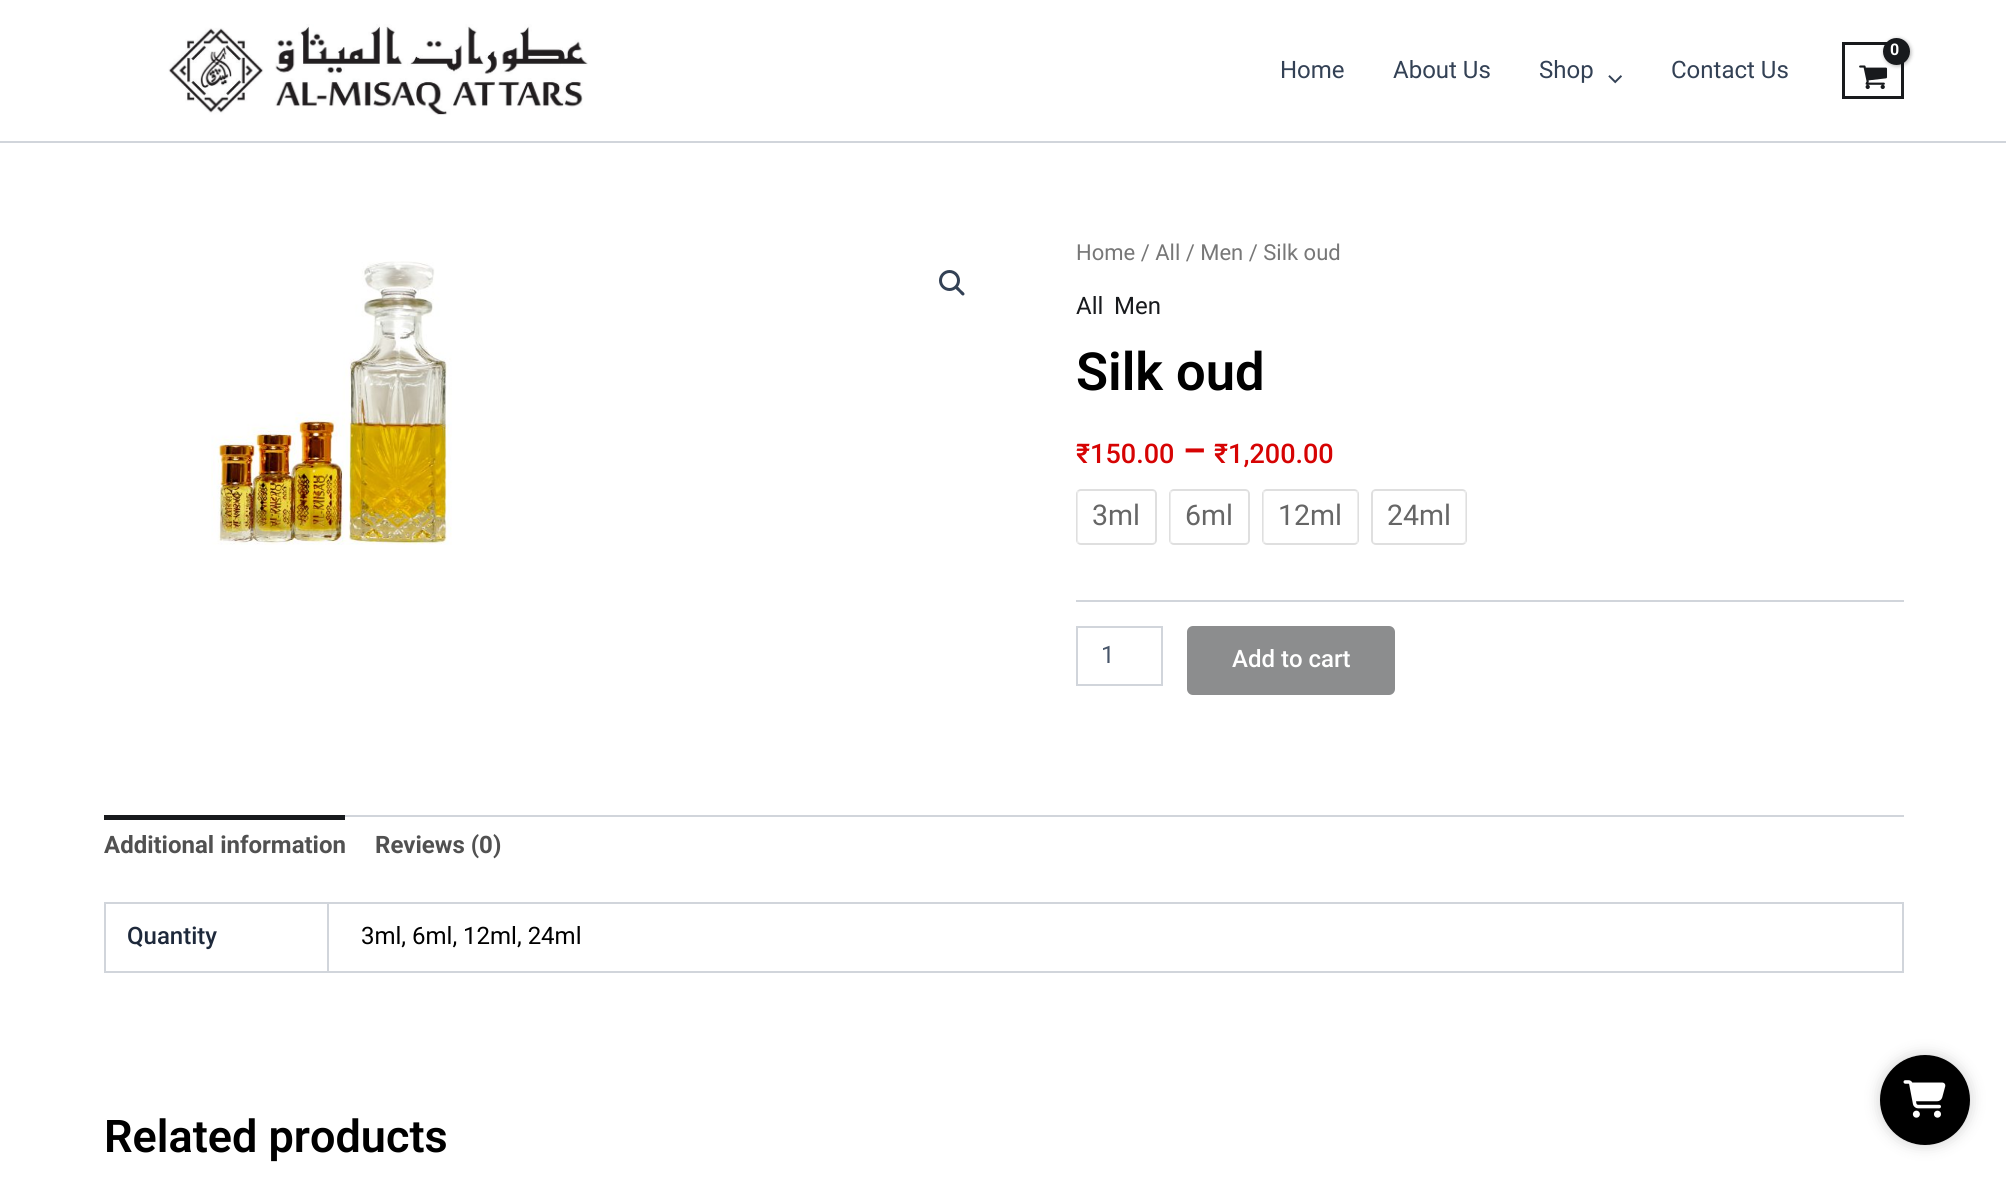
#include <cairo/cairo.h>
#include <math.h>
#include <stddef.h>

typedef struct { double x, y; const char *s; } line_t;
typedef struct { double x, y, w, h; unsigned color; } box_t;
static cairo_t *cr;

static void rgb(unsigned color)
{
	cairo_set_source_rgb(cr, (color >> 16) / 255.0, (color >> 8 & 255) / 255.0, (color & 255) / 255.0);
}

static void tracked(double x, double y, const char *s, double letter, double word)
{
	cairo_move_to(cr, x, y);
	while (*s) {
		char ch[5] = {0};
		int n = 0;
		do ch[n++] = *s++; while ((*s & 0xC0) == 0x80);
		cairo_show_text(cr, ch);
		cairo_rel_move_to(cr, letter + word * (*ch == ' '), 0);
	}
}

static void rrect(double x, double y, double w, double h, double r)
{
	cairo_new_sub_path(cr);
	cairo_arc(cr, x + w - r, y + h - r, r, 0, M_PI / 2);
	cairo_arc(cr, x + r, y + h - r, r, M_PI / 2, M_PI);
	cairo_arc(cr, x + r, y + r, r, M_PI, 1.5 * M_PI);
	cairo_arc(cr, x + w - r, y + r, r, 1.5 * M_PI, 2 * M_PI);
	cairo_close_path(cr);
}

static void soft_shadow(double x, double y, double w, double h, double r, double blur, double alpha)
{
	cairo_push_group_with_content(cr, CAIRO_CONTENT_ALPHA);
	cairo_set_operator(cr, CAIRO_OPERATOR_SOURCE);
	for (int i = 15; i >= -15 && fmin(w, h) + blur * i / 3 > 0; i -= 2) {
		double e = blur * i / 6;
		cairo_set_source_rgba(cr, 0, 0, 0, alpha * erfc((i - 1) / 8.5) / 2);
		rrect(x - e, y - e, w + 2 * e, h + 2 * e, fmax(0, fmin(r + e + blur * .6, fmin(w, h) / 2 + e)));
		cairo_fill(cr);
	}
	cairo_pattern_t *soft = cairo_pop_group(cr);
	cairo_mask(cr, soft);
	cairo_pattern_destroy(soft);
}

static void image(const char *path, double x, double y, double w, double h)
{
	cairo_surface_t *image = cairo_image_surface_create_from_png(path);
	cairo_save(cr);
	cairo_set_source_surface(cr, image, x, y);
	cairo_rectangle(cr, x, y, w, h);
	cairo_fill(cr);
	cairo_restore(cr);
	cairo_surface_destroy(image);
}

int main(void) {
	cairo_surface_t *surface = cairo_image_surface_create(CAIRO_FORMAT_RGB24, 2006, 1181);
	cr = cairo_create(surface);
	cairo_font_options_t *options = cairo_font_options_create();
	cairo_font_options_set_hint_metrics(options, CAIRO_HINT_METRICS_OFF);
	cairo_font_options_set_hint_style(options, CAIRO_HINT_STYLE_NONE);
	cairo_set_font_options(cr, options);
	cairo_set_miter_limit(cr, 4);
	rgb(0xffffff);
	cairo_paint(cr);
	rgb(0xd1d5db);
	cairo_rectangle(cr, 0, 141, 2006, 2);
	cairo_fill(cr);
	image("img/1.png", 168, 24, 420, 91);
	cairo_rectangle(cr, 1843.5, 43.5, 59, 54);
	rgb(0x181a1d);
	cairo_set_line_width(cr, 3);
	cairo_stroke(cr);
	image("img/2.png", 1859, 65, 29, 25);
	rgb(0x000000);
	soft_shadow(1884, 39, 27, 27, 13.5, 2, 0.3);
	rgb(0x181a1d);
	cairo_arc(cr, 1896.5, 51.5, 13.5, 0, 2 * M_PI);
	cairo_fill(cr);
	image("img/3.png", 1608, 75, 14, 9);
	image("img/4.png", 211, 261, 241, 284);
	cairo_arc(cr, 949.5, 280.5, 9, 0, 2 * M_PI);
	rgb(0x334155);
	cairo_stroke(cr);
	cairo_new_path(cr);
	cairo_move_to(cr, 956, 287);
	cairo_curve_to(cr, 957.5, 285, 960, 289, 961, 290);
	cairo_curve_to(cr, 962, 291, 966, 293.5, 964, 295);
	cairo_curve_to(cr, 962.5, 297, 960, 293, 959, 292);
	cairo_curve_to(cr, 958, 291, 954, 288.5, 956, 287);
	cairo_close_path(cr);
	cairo_fill(cr);
	rgb(0xd1d5db);
	cairo_rectangle(cr, 1076, 600, 828, 2);
	cairo_fill(cr);
	rrect(1077, 490, 79, 54, 4);
	rgb(0xdfdfdf);
	cairo_set_line_width(cr, 2);
	cairo_stroke(cr);
	rrect(1170, 490, 79, 54, 4);
	cairo_stroke(cr);
	rrect(1263, 490, 95, 54, 4);
	cairo_stroke(cr);
	rrect(1372, 490, 94, 54, 4);
	cairo_stroke(cr);
	cairo_rectangle(cr, 1077, 627, 85, 58);
	rgb(0xd1d5db);
	cairo_stroke(cr);
	rgb(0x8c8d8e);
	rrect(1187, 626, 208, 69, 6);
	cairo_fill(cr);
	{
		static const box_t items[] = {
			{345, 815, 1559, 2, 0xd1d5db},
			{104, 815, 241, 5, 0x181a1d},
			{104, 902, 1800, 2, 0xd1d5db},
			{327, 903, 2, 69, 0xd1d5db},
			{104, 971, 225, 2, 0xd1d5db},
			{104, 903, 2, 69, 0xd1d5db},
			{1902, 903, 2, 69, 0xd1d5db},
			{329, 971, 1575, 2, 0xd1d5db},
		};
		for (size_t i = 0; i < sizeof items / sizeof *items; i++) {
			rgb(items[i].color);
			cairo_rectangle(cr, items[i].x, items[i].y, items[i].w, items[i].h);
			cairo_fill(cr);
		}
	}
	rgb(0x000000);
	soft_shadow(1880, 1055, 90, 90, 45, 7.5, 0.19);
	rgb(0x000000);
	cairo_arc(cr, 1925, 1100, 45, 0, 2 * M_PI);
	cairo_fill(cr);
	image("img/5.png", 1903, 1080, 43, 38);
	cairo_select_font_face(cr, "Roboto", CAIRO_FONT_SLANT_NORMAL, CAIRO_FONT_WEIGHT_BOLD);
	cairo_set_font_size(cr, 16);
	rgb(0xffffff);
	tracked(1890, 55, "0", -1, 0);
	cairo_select_font_face(cr, "Roboto", CAIRO_FONT_SLANT_NORMAL, CAIRO_FONT_WEIGHT_NORMAL);
	cairo_set_font_size(cr, 24);
	rgb(0x334155);
	{
		static const line_t items[] = {
			{1280, 78, "Home"},
			{1393, 78, "About Us"},
			{1539, 78, "Shop"},
			{1671, 78, "Contact Us"},
		};
		for (size_t i = 0; i < sizeof items / sizeof *items; i++) {
			cairo_move_to(cr, items[i].x, items[i].y);
			cairo_show_text(cr, items[i].s);
		}
	}
	cairo_set_font_size(cr, 22);
	rgb(0x777777);
	cairo_move_to(cr, 1076, 260);
	cairo_show_text(cr, "Home / All / Men / Silk oud");
	cairo_set_font_size(cr, 24);
	rgb(0x181a1d);
	cairo_move_to(cr, 1076, 314);
	cairo_show_text(cr, "All");
	cairo_move_to(cr, 1114, 314);
	cairo_show_text(cr, "Men");
	cairo_select_font_face(cr, "Roboto SemiBold", CAIRO_FONT_SLANT_NORMAL, CAIRO_FONT_WEIGHT_NORMAL);
	cairo_set_font_size(cr, 52.5);
	rgb(0x000000);
	cairo_move_to(cr, 1076, 390);
	cairo_show_text(cr, "Silk oud");
	cairo_select_font_face(cr, "Roboto Medium", CAIRO_FONT_SLANT_NORMAL, CAIRO_FONT_WEIGHT_NORMAL);
	cairo_set_font_size(cr, 27);
	rgb(0xd60303);
	cairo_move_to(cr, 1076, 463);
	cairo_show_text(cr, "₹150.00");
	cairo_select_font_face(cr, "Roboto", CAIRO_FONT_SLANT_NORMAL, CAIRO_FONT_WEIGHT_BOLD);
	cairo_set_font_size(cr, 36);
	cairo_move_to(cr, 1183, 463);
	cairo_show_text(cr, "–");
	cairo_select_font_face(cr, "Roboto Medium", CAIRO_FONT_SLANT_NORMAL, CAIRO_FONT_WEIGHT_NORMAL);
	cairo_set_font_size(cr, 27);
	cairo_move_to(cr, 1214, 463);
	cairo_show_text(cr, "₹1,200.00");
	cairo_select_font_face(cr, "Roboto", CAIRO_FONT_SLANT_NORMAL, CAIRO_FONT_WEIGHT_NORMAL);
	cairo_set_font_size(cr, 28.5);
	rgb(0x000000);
	cairo_move_to(cr, 1092, 525);
	cairo_show_text(cr, "3ml");
	cairo_set_source_rgba(cr, 1, 1, 1, 0.4);
	cairo_rectangle(cr, 1077, 491, 78, 52);
	cairo_fill(cr);
	rgb(0x000000);
	cairo_move_to(cr, 1185, 525);
	cairo_show_text(cr, "6ml");
	cairo_set_source_rgba(cr, 1, 1, 1, 0.4);
	cairo_rectangle(cr, 1170, 491, 78, 52);
	cairo_fill(cr);
	rgb(0x000000);
	cairo_move_to(cr, 1278, 525);
	cairo_show_text(cr, "12ml");
	cairo_set_source_rgba(cr, 1, 1, 1, 0.4);
	cairo_rectangle(cr, 1263, 491, 95, 52);
	cairo_fill(cr);
	rgb(0x000000);
	cairo_move_to(cr, 1387, 525);
	cairo_show_text(cr, "24ml");
	cairo_set_source_rgba(cr, 1, 1, 1, 0.4);
	cairo_rectangle(cr, 1373, 491, 93, 52);
	cairo_fill(cr);
	cairo_set_font_size(cr, 24);
	rgb(0x475569);
	cairo_move_to(cr, 1101, 663);
	cairo_show_text(cr, "1");
	cairo_select_font_face(cr, "Roboto Medium", CAIRO_FONT_SLANT_NORMAL, CAIRO_FONT_WEIGHT_NORMAL);
	rgb(0xffffff);
	cairo_move_to(cr, 1232, 667);
	cairo_show_text(cr, "Add to cart");
	cairo_select_font_face(cr, "Roboto", CAIRO_FONT_SLANT_NORMAL, CAIRO_FONT_WEIGHT_BOLD);
	rgb(0x515151);
	cairo_move_to(cr, 104, 853);
	cairo_show_text(cr, "Additional information");
	cairo_move_to(cr, 375, 853);
	cairo_show_text(cr, "Reviews (0)");
	cairo_select_font_face(cr, "Roboto Medium", CAIRO_FONT_SLANT_NORMAL, CAIRO_FONT_WEIGHT_NORMAL);
	rgb(0x1e293b);
	cairo_move_to(cr, 127, 944);
	cairo_show_text(cr, "Quantity");
	cairo_select_font_face(cr, "Roboto", CAIRO_FONT_SLANT_NORMAL, CAIRO_FONT_WEIGHT_NORMAL);
	rgb(0x000000);
	cairo_move_to(cr, 361, 944);
	cairo_show_text(cr, "3ml, 6ml, 12ml, 24ml");
	cairo_select_font_face(cr, "Roboto SemiBold", CAIRO_FONT_SLANT_NORMAL, CAIRO_FONT_WEIGHT_NORMAL);
	cairo_set_font_size(cr, 45);
	cairo_move_to(cr, 104, 1152);
	cairo_show_text(cr, "Related products");
	cairo_surface_write_to_png(surface, "page.png");
	cairo_font_options_destroy(options);
	cairo_destroy(cr);
	cairo_surface_destroy(surface);
	return 0;
}
